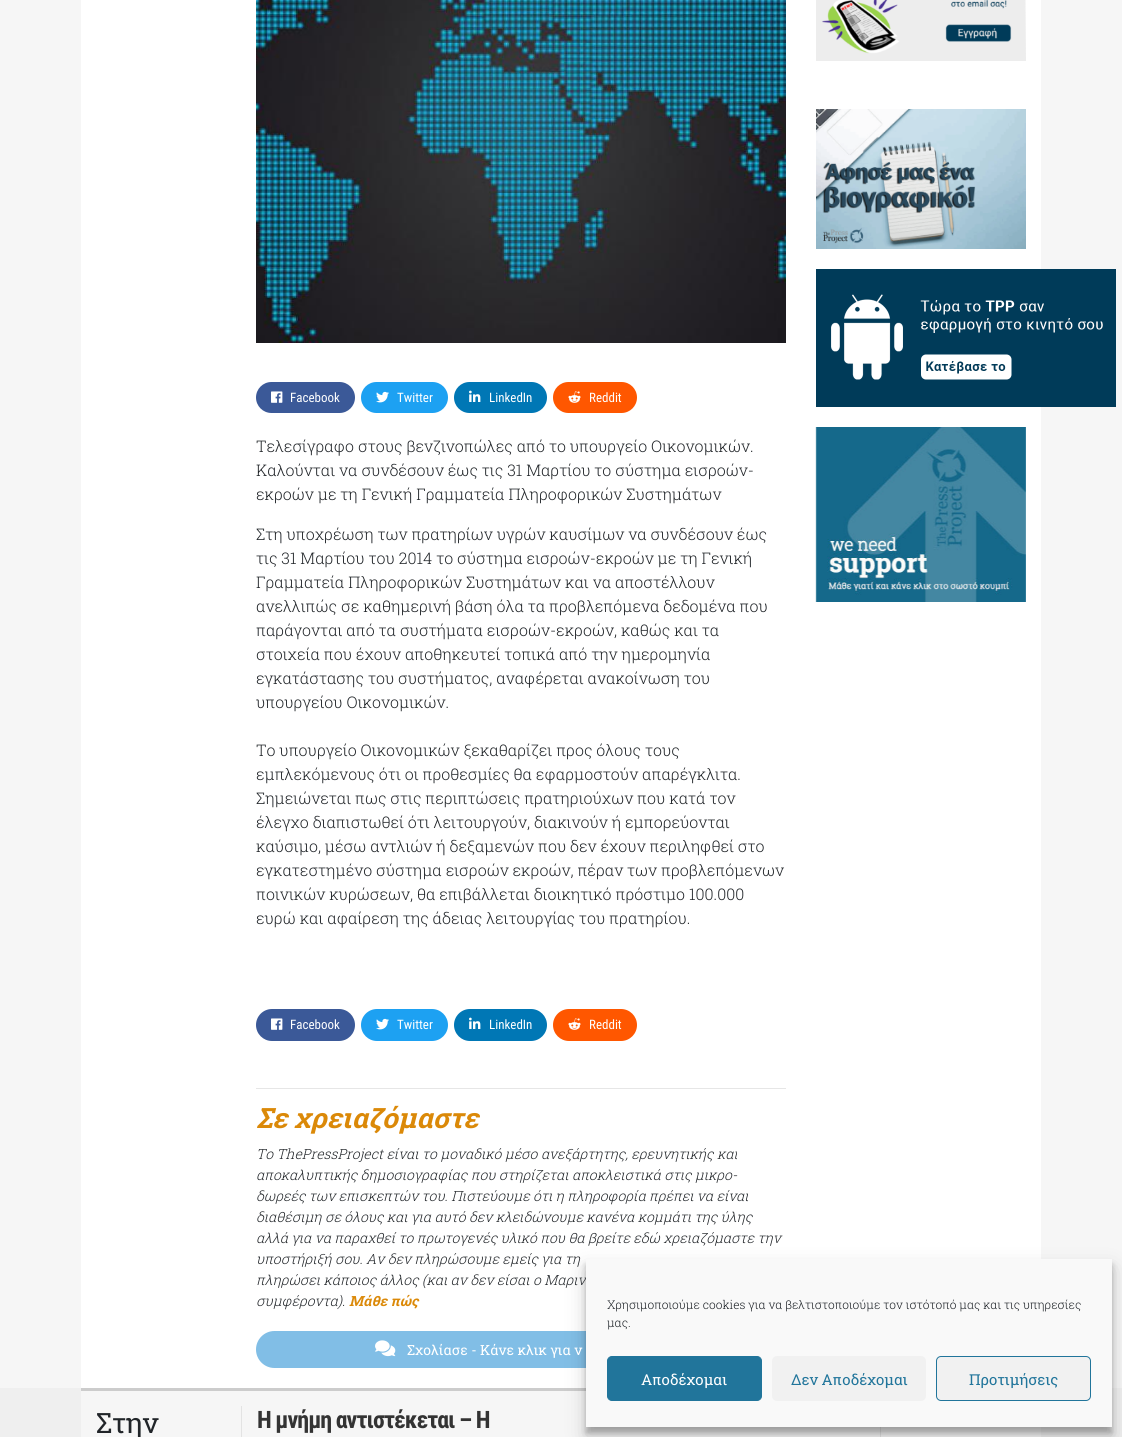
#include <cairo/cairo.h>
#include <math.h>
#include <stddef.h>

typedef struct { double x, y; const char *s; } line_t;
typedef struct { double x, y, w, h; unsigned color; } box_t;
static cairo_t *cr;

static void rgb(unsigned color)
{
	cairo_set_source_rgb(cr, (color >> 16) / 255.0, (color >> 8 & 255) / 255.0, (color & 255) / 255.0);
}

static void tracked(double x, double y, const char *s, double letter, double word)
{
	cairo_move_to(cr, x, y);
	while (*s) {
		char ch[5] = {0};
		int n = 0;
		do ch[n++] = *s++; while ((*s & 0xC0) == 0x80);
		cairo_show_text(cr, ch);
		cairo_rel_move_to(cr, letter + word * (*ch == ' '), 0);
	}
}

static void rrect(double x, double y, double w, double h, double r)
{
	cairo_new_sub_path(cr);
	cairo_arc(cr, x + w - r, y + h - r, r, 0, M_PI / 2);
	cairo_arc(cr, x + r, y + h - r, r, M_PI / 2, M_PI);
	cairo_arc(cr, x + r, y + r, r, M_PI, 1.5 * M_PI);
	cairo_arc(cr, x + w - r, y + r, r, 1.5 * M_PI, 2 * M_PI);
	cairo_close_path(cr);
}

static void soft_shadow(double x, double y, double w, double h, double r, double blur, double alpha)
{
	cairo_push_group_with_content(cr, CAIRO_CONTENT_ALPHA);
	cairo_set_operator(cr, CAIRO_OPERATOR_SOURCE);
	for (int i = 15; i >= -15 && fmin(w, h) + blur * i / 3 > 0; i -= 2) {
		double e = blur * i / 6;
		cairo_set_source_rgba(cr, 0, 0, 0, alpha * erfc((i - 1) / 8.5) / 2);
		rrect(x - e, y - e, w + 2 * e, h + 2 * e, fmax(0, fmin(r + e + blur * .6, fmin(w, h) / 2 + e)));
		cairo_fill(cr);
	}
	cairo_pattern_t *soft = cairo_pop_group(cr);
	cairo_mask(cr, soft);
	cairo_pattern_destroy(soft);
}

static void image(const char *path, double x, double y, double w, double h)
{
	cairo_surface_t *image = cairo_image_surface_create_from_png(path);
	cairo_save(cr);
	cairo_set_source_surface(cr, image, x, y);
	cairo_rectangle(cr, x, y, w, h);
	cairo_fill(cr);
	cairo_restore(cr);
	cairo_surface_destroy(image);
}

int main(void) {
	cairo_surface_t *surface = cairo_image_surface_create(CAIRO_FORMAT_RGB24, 1122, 1437);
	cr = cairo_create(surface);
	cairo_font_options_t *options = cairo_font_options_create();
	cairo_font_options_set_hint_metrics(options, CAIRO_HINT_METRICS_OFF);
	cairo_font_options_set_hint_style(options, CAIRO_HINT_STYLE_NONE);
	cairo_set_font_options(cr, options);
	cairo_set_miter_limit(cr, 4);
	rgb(0xf6f6f6);
	cairo_paint(cr);
	rgb(0xffffff);
	cairo_rectangle(cr, 81, 0, 960, 1388);
	cairo_fill(cr);
	image("img/1.png", 816, 0, 210, 61);
	image("img/2.png", 816, 109, 210, 140);
	image("img/3.png", 816, 269, 300, 138);
	image("img/4.png", 815, 427, 211, 175);
	image("img/5.png", 256, 0, 530, 343);
	rgb(0x3b5998);
	rrect(256, 382, 99, 31, 15.5);
	cairo_fill(cr);
	image("img/6.png", 271, 391, 12, 12);
	rgb(0x1da1f2);
	rrect(361, 382, 87, 31, 15.5);
	cairo_fill(cr);
	image("img/7.png", 376, 391, 13, 12);
	rgb(0x0077b5);
	rrect(454, 382, 93, 31, 15.5);
	cairo_fill(cr);
	image("img/8.png", 469, 390, 12, 12);
	rgb(0xff5700);
	rrect(553, 382, 84, 31, 15.5);
	cairo_fill(cr);
	image("img/9.png", 568, 391, 13, 12);
	rgb(0x3b5998);
	rrect(256, 1009, 99, 32, 16);
	cairo_fill(cr);
	image("img/6.png", 271, 1018, 12, 12);
	rgb(0x1da1f2);
	rrect(361, 1009, 87, 32, 16);
	cairo_fill(cr);
	image("img/7.png", 376, 1018, 13, 12);
	rgb(0x0077b5);
	rrect(454, 1009, 93, 32, 16);
	cairo_fill(cr);
	image("img/8.png", 469, 1017, 12, 12);
	rgb(0xff5700);
	rrect(553, 1009, 84, 32, 16);
	cairo_fill(cr);
	image("img/9.png", 568, 1018, 13, 12);
	rgb(0xe6e6e6);
	cairo_rectangle(cr, 256, 1088, 530, 1);
	cairo_fill(cr);
	rgb(0x81bee6);
	rrect(256, 1331, 530, 37, 18.5);
	cairo_fill(cr);
	image("img/10.png", 375, 1340, 21, 17);
	{
		static const box_t items[] = {
			{0, 1388, 1122, 49, 0xefefef},
			{81, 1391, 960, 46, 0xf6f6f6},
			{81, 1388, 505, 3, 0xcccccc},
			{880, 1427, 1, 10, 0xe3e3e3},
			{241, 1406, 1, 31, 0xe3e3e3},
		};
		for (size_t i = 0; i < sizeof items / sizeof *items; i++) {
			rgb(items[i].color);
			cairo_rectangle(cr, items[i].x, items[i].y, items[i].w, items[i].h);
			cairo_fill(cr);
		}
	}
	rgb(0x000000);
	soft_shadow(586, 1265, 526, 168, 0, 3, 0.23);
	soft_shadow(586, 1269, 526, 168, 0, 10, 0.19);
	cairo_select_font_face(cr, "Roboto Condensed", CAIRO_FONT_SLANT_NORMAL, CAIRO_FONT_WEIGHT_NORMAL);
	cairo_set_font_size(cr, 13);
	rgb(0xffffff);
	{
		static const line_t items[] = {
			{290, 402, "Facebook"},
			{397, 402, "Twitter"},
			{489, 402, "LinkedIn"},
			{589, 402, "Reddit"},
		};
		for (size_t i = 0; i < sizeof items / sizeof *items; i++) {
			cairo_move_to(cr, items[i].x, items[i].y);
			cairo_show_text(cr, items[i].s);
		}
	}
	cairo_select_font_face(cr, "Roboto Slab Light", CAIRO_FONT_SLANT_NORMAL, CAIRO_FONT_WEIGHT_NORMAL);
	cairo_set_font_size(cr, 16);
	rgb(0x212529);
	{
		static const line_t items[] = {
			{256, 452, "Τελεσίγραφο στους βενζινοπώλες από το υπουργείο Οικονομικών."},
			{256, 476, "Καλούνται να συνδέσουν έως τις 31 Μαρτίου το σύστημα εισροών-"},
			{256, 500, "εκροών με τη Γενική Γραμματεία Πληροφορικών Συστημάτων"},
			{256, 540, "Στη υποχρέωση των πρατηρίων υγρών καυσίμων να συνδέσουν έως"},
			{256, 564, "τις 31 Μαρτίου του 2014 το σύστημα εισροών-εκροών με τη Γενική"},
			{256, 588, "Γραμματεία Πληροφορικών Συστημάτων και να αποστέλλουν"},
			{256, 612, "ανελλιπώς σε καθημερινή βάση όλα τα προβλεπόμενα δεδομένα που"},
			{256, 636, "παράγονται από τα συστήματα εισροών-εκροών, καθώς και τα"},
			{256, 660, "στοιχεία που έχουν αποθηκευτεί τοπικά από την ημερομηνία"},
			{256, 684, "εγκατάστασης του συστήματος, αναφέρεται ανακοίνωση του"},
			{256, 708, "υπουργείου Οικονομικών."},
			{256, 756, "Το υπουργείο Οικονομικών ξεκαθαρίζει προς όλους τους"},
			{256, 780, "εμπλεκόμενους ότι οι προθεσμίες θα εφαρμοστούν απαρέγκλιτα."},
			{256, 804, "Σημειώνεται πως στις περιπτώσεις πρατηριούχων που κατά τον"},
			{256, 828, "έλεγχο διαπιστωθεί ότι λειτουργούν, διακινούν ή εμπορεύονται"},
			{256, 852, "καύσιμο, μέσω αντλιών ή δεξαμενών που δεν έχουν περιληφθεί στο"},
			{256, 876, "εγκατεστημένο σύστημα εισροών εκροών, πέραν των προβλεπόμενων"},
			{256, 900, "ποινικών κυρώσεων, θα επιβάλλεται διοικητικό πρόστιμο 100.000"},
			{256, 924, "ευρώ και αφαίρεση της άδειας λειτουργίας του πρατηρίου."},
		};
		for (size_t i = 0; i < sizeof items / sizeof *items; i++) {
			cairo_move_to(cr, items[i].x, items[i].y);
			cairo_show_text(cr, items[i].s);
		}
	}
	cairo_select_font_face(cr, "Roboto Condensed", CAIRO_FONT_SLANT_NORMAL, CAIRO_FONT_WEIGHT_NORMAL);
	cairo_set_font_size(cr, 13);
	rgb(0xffffff);
	{
		static const line_t items[] = {
			{290, 1029, "Facebook"},
			{397, 1029, "Twitter"},
			{489, 1029, "LinkedIn"},
			{589, 1029, "Reddit"},
		};
		for (size_t i = 0; i < sizeof items / sizeof *items; i++) {
			cairo_move_to(cr, items[i].x, items[i].y);
			cairo_show_text(cr, items[i].s);
		}
	}
	cairo_select_font_face(cr, "Roboto Slab", CAIRO_FONT_SLANT_ITALIC, CAIRO_FONT_WEIGHT_BOLD);
	cairo_set_font_size(cr, 28);
	rgb(0xdb8908);
	cairo_move_to(cr, 256, 1128);
	cairo_show_text(cr, "Σε χρειαζόμαστε");
	cairo_select_font_face(cr, "Roboto Slab Light", CAIRO_FONT_SLANT_ITALIC, CAIRO_FONT_WEIGHT_NORMAL);
	cairo_set_font_size(cr, 14);
	rgb(0x212529);
	{
		static const line_t items[] = {
			{256, 1159, "Το ThePressProject είναι το μοναδικό μέσο ανεξάρτητης, ερευνητικής και"},
			{256, 1180, "αποκαλυπτικής δημοσιογραφίας που στηρίζεται αποκλειστικά στις μικρο-"},
			{256, 1201, "δωρεές των επισκεπτών του. Πιστεύουμε ότι η πληροφορία πρέπει να είναι"},
			{256, 1222, "διαθέσιμη σε όλους και για αυτό δεν κλειδώνουμε κανένα κομμάτι της ύλης"},
			{256, 1243, "αλλά για να παραχθεί το πρωτογενές υλικό που θα βρείτε εδώ χρειαζόμαστε την"},
			{256, 1264, "υποστήριξή σου. Αν δεν πληρώσουμε εμείς για τη"},
			{256, 1285, "πληρώσει κάποιος άλλος (και αν δεν είσαι ο Μαριν"},
			{256, 1306, "συμφέροντα)."},
		};
		for (size_t i = 0; i < sizeof items / sizeof *items; i++) {
			cairo_move_to(cr, items[i].x, items[i].y);
			cairo_show_text(cr, items[i].s);
		}
	}
	cairo_select_font_face(cr, "Roboto Slab", CAIRO_FONT_SLANT_ITALIC, CAIRO_FONT_WEIGHT_BOLD);
	rgb(0xdb8908);
	cairo_move_to(cr, 349, 1306);
	cairo_show_text(cr, "Μάθε πώς");
	cairo_select_font_face(cr, "Roboto Slab", CAIRO_FONT_SLANT_NORMAL, CAIRO_FONT_WEIGHT_NORMAL);
	rgb(0xffffff);
	cairo_move_to(cr, 407, 1355);
	cairo_show_text(cr, "Σχολίασε - Κάνε κλικ για ν");
	cairo_set_font_size(cr, 28);
	rgb(0x212529);
	cairo_move_to(cr, 96, 1433);
	cairo_show_text(cr, "Στην");
	cairo_select_font_face(cr, "Roboto Condensed", CAIRO_FONT_SLANT_NORMAL, CAIRO_FONT_WEIGHT_BOLD);
	cairo_set_font_size(cr, 24);
	rgb(0x333333);
	tracked(257, 1428, "Η μνήμη αντιστέκεται – Η", -1, 0);
	rgb(0xf9f9f9);
	cairo_rectangle(cr, 586, 1259, 526, 168);
	cairo_fill(cr);
	cairo_select_font_face(cr, "Roboto Slab Light", CAIRO_FONT_SLANT_NORMAL, CAIRO_FONT_WEIGHT_NORMAL);
	cairo_set_font_size(cr, 12);
	rgb(0x191e23);
	cairo_move_to(cr, 607, 1309);
	cairo_show_text(cr, "Χρησιμοποιούμε cookies για να βελτιστοποιούμε τον ιστότοπό μας και τις υπηρεσίες");
	cairo_move_to(cr, 607, 1327);
	cairo_show_text(cr, "μας.");
	rgb(0x21759b);
	rrect(607.5, 1356.5, 154, 44, 4.5);
	cairo_fill_preserve(cr);
	cairo_set_line_width(cr, 1);
	cairo_stroke(cr);
	cairo_select_font_face(cr, "Roboto Slab", CAIRO_FONT_SLANT_NORMAL, CAIRO_FONT_WEIGHT_NORMAL);
	cairo_set_font_size(cr, 15);
	rgb(0xffffff);
	cairo_move_to(cr, 641, 1385);
	cairo_show_text(cr, "Αποδέχομαι");
	rgb(0xf1f1f1);
	rrect(772, 1356, 154, 45, 5);
	cairo_fill(cr);
	rgb(0x21759b);
	cairo_move_to(cr, 791, 1385);
	cairo_show_text(cr, "Δεν Αποδέχομαι");
	rgb(0xf1f1f1);
	rrect(936.5, 1356.5, 154, 44, 4.5);
	cairo_fill_preserve(cr);
	rgb(0x21759b);
	cairo_stroke(cr);
	cairo_move_to(cr, 969, 1385);
	cairo_show_text(cr, "Προτιμήσεις");
	cairo_surface_write_to_png(surface, "page.png");
	cairo_font_options_destroy(options);
	cairo_destroy(cr);
	cairo_surface_destroy(surface);
	return 0;
}
